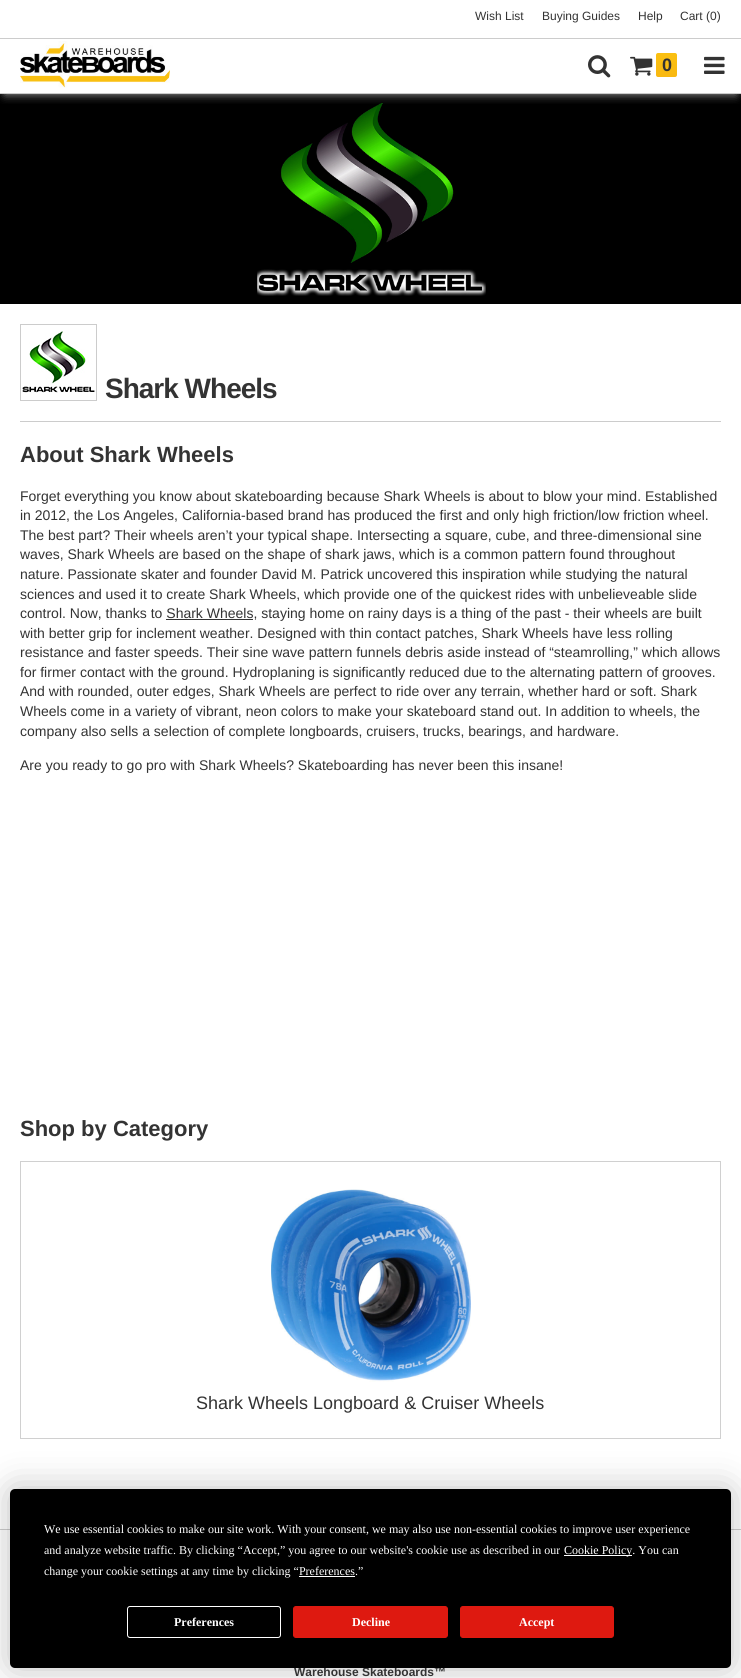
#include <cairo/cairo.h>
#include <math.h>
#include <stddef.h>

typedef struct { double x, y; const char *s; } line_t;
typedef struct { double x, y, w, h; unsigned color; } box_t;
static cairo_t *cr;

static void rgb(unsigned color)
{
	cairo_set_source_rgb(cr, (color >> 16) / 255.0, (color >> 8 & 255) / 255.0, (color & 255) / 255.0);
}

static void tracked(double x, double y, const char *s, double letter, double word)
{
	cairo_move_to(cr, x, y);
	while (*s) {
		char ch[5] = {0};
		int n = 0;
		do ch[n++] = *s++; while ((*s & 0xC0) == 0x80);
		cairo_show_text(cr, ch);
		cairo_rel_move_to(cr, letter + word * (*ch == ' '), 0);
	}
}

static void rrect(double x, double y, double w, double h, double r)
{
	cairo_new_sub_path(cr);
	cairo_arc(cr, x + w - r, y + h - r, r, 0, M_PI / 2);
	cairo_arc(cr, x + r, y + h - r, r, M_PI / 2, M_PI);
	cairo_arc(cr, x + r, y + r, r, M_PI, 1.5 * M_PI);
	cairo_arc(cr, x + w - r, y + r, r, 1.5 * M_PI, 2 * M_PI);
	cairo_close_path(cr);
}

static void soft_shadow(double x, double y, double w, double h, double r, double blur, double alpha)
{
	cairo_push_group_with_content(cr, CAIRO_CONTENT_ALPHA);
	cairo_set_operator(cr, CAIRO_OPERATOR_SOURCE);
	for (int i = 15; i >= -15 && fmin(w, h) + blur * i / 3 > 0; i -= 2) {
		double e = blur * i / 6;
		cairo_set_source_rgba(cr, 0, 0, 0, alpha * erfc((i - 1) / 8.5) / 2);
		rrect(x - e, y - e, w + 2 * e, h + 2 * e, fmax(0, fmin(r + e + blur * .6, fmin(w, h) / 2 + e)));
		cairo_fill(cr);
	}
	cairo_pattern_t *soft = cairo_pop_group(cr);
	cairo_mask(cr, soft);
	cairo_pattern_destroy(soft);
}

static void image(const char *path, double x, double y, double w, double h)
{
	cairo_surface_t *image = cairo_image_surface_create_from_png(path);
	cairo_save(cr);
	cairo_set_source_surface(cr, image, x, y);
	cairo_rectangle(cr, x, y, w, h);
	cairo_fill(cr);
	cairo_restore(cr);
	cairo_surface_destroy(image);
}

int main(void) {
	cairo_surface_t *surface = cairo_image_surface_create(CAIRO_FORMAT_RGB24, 741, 1678);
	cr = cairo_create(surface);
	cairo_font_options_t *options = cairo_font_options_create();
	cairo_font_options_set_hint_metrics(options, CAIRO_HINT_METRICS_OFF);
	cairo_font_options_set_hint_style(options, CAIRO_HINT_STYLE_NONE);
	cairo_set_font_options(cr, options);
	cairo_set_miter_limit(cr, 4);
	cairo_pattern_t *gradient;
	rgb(0xffffff);
	cairo_paint(cr);
	image("img/5.png", 0, 94, 741, 210);
	cairo_save(cr);
	cairo_rectangle(cr, 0, 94, 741, 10);
	cairo_clip(cr);
	rgb(0xaaaaaa);
	soft_shadow(5, 10, 731, 84, 0, 5, 1);
	cairo_restore(cr);
	rgb(0xcccccc);
	cairo_rectangle(cr, 0, 93, 741, 1);
	cairo_fill(cr);
	cairo_rectangle(cr, 0, 38, 741, 1);
	cairo_fill(cr);
	image("img/1.png", 20, 41, 150, 47);
	image("img/2.png", 588, 55, 23, 23);
	image("img/3.png", 630, 56, 23, 20);
	gradient = cairo_pattern_create_linear(667, 53, 667, 77);
	cairo_pattern_add_color_stop_rgba(gradient, 0, 0.98, 0.753, 0.067, 1);
	cairo_pattern_add_color_stop_rgba(gradient, 1, 0.976, 0.722, 0.067, 1);
	cairo_set_source(cr, gradient);
	cairo_pattern_destroy(gradient);
	rrect(656, 53, 21, 24, 2);
	cairo_fill(cr);
	image("img/4.png", 704, 56, 21, 18);
	cairo_rectangle(cr, 20.5, 324.5, 76, 76);
	rgb(0xcccccc);
	cairo_set_line_width(cr, 1);
	cairo_stroke(cr);
	image("img/6.png", 22, 331, 73, 62);
	{
		static const box_t items[] = {
			{20, 421, 701, 1, 0xcccccc},
			{166, 619, 87, 1, 0x333333},
			{20, 1161, 701, 1, 0xd0d0d0},
			{720, 1161, 1, 278, 0xd0d0d0},
			{20, 1438, 701, 1, 0xd0d0d0},
			{20, 1161, 1, 278, 0xd0d0d0},
		};
		for (size_t i = 0; i < sizeof items / sizeof *items; i++) {
			rgb(items[i].color);
			cairo_rectangle(cr, items[i].x, items[i].y, items[i].w, items[i].h);
			cairo_fill(cr);
		}
	}
	image("img/7.png", 271, 1189, 200, 193);
	rgb(0xcccccc);
	cairo_rectangle(cr, 0, 1529, 741, 1);
	cairo_fill(cr);
	rgb(0x000000);
	soft_shadow(10, 1489, 721, 179, 5, 17.5, 0.25);
	cairo_select_font_face(cr, "Liberation Sans", CAIRO_FONT_SLANT_NORMAL, CAIRO_FONT_WEIGHT_NORMAL);
	cairo_set_font_size(cr, 12);
	rgb(0x333333);
	{
		static const line_t items[] = {
			{475, 20, "Wish List"},
			{542, 20, "Buying Guides"},
			{638, 20, "Help"},
			{680, 20, "Cart (0)"},
		};
		for (size_t i = 0; i < sizeof items / sizeof *items; i++) {
			cairo_move_to(cr, items[i].x, items[i].y);
			cairo_show_text(cr, items[i].s);
		}
	}
	cairo_select_font_face(cr, "Liberation Sans", CAIRO_FONT_SLANT_NORMAL, CAIRO_FONT_WEIGHT_BOLD);
	cairo_set_font_size(cr, 18);
	tracked(662, 71, "0", -1, 0);
	cairo_set_font_size(cr, 28);
	tracked(105, 398, "Shark Wheels", -1, 0);
	cairo_set_font_size(cr, 22);
	cairo_move_to(cr, 20, 462);
	cairo_show_text(cr, "About Shark Wheels");
	cairo_select_font_face(cr, "Liberation Sans", CAIRO_FONT_SLANT_NORMAL, CAIRO_FONT_WEIGHT_NORMAL);
	cairo_set_font_size(cr, 14);
	{
		static const line_t items[] = {
			{20, 501, "Forget everything you know about skateboarding because Shark Wheels is about to blow your mind. Established"},
			{20, 520, "in 2012, the Los Angeles, California-based brand has produced the first and only high friction/low friction wheel."},
			{20, 540, "The best part? Their wheels aren’t your typical shape. Intersecting a square, cube, and three-dimensional sine"},
			{20, 559, "waves, Shark Wheels are based on the shape of shark jaws, which is a common pattern found throughout"},
			{20, 579, "nature. Passionate skater and founder David M. Patrick uncovered this inspiration while studying the natural"},
			{20, 599, "sciences and used it to create Shark Wheels, which provide one of the quickest rides with unbelieveable slide"},
			{20, 618, "control. Now, thanks to Shark Wheels, staying home on rainy days is a thing of the past - their wheels are built"},
			{20, 638, "with better grip for inclement weather. Designed with thin contact patches, Shark Wheels have less rolling"},
			{20, 657, "resistance and faster speeds. Their sine wave pattern funnels debris aside instead of “steamrolling,” which allows"},
			{20, 677, "for firmer contact with the ground. Hydroplaning is significantly reduced due to the alternating pattern of grooves."},
			{20, 696, "And with rounded, outer edges, Shark Wheels are perfect to ride over any terrain, whether hard or soft. Shark"},
			{20, 716, "Wheels come in a variety of vibrant, neon colors to make your skateboard stand out. In addition to wheels, the"},
			{20, 736, "company also sells a selection of complete longboards, cruisers, trucks, bearings, and hardware."},
			{20, 770, "Are you ready to go pro with Shark Wheels? Skateboarding has never been this insane!"},
		};
		for (size_t i = 0; i < sizeof items / sizeof *items; i++) {
			cairo_move_to(cr, items[i].x, items[i].y);
			cairo_show_text(cr, items[i].s);
		}
	}
	cairo_select_font_face(cr, "Liberation Sans", CAIRO_FONT_SLANT_NORMAL, CAIRO_FONT_WEIGHT_BOLD);
	cairo_set_font_size(cr, 22);
	cairo_move_to(cr, 20, 1136);
	cairo_show_text(cr, "Shop by Category");
	cairo_select_font_face(cr, "Liberation Sans", CAIRO_FONT_SLANT_NORMAL, CAIRO_FONT_WEIGHT_NORMAL);
	cairo_set_font_size(cr, 18);
	cairo_move_to(cr, 196, 1409);
	cairo_show_text(cr, "Shark Wheels Longboard & Cruiser Wheels");
	cairo_select_font_face(cr, "Liberation Sans", CAIRO_FONT_SLANT_NORMAL, CAIRO_FONT_WEIGHT_BOLD);
	cairo_set_font_size(cr, 12);
	cairo_move_to(cr, 294, 1676);
	cairo_show_text(cr, "Warehouse Skateboards™");
	rgb(0x000000);
	rrect(10, 1489, 721, 179, 5);
	cairo_fill(cr);
	rgb(0xde1910);
	rrect(460.5, 1606.5, 153, 31, 2.5);
	cairo_fill_preserve(cr);
	cairo_stroke(cr);
	cairo_select_font_face(cr, "Liberation Serif", CAIRO_FONT_SLANT_NORMAL, CAIRO_FONT_WEIGHT_BOLD);
	rgb(0xffffff);
	cairo_move_to(cr, 519, 1626);
	cairo_show_text(cr, "Accept");
	rgb(0xde1910);
	rrect(293.5, 1606.5, 154, 31, 2.5);
	cairo_fill_preserve(cr);
	cairo_stroke(cr);
	rgb(0xffffff);
	cairo_move_to(cr, 352, 1626);
	cairo_show_text(cr, "Decline");
	rrect(127.5, 1606.5, 153, 31, 2.5);
	cairo_stroke(cr);
	cairo_move_to(cr, 174, 1626);
	cairo_show_text(cr, "Preferences");
	cairo_rectangle(cr, 299, 1576, 56, 1);
	cairo_fill(cr);
	cairo_select_font_face(cr, "Liberation Serif", CAIRO_FONT_SLANT_NORMAL, CAIRO_FONT_WEIGHT_NORMAL);
	cairo_move_to(cr, 44, 1575);
	cairo_show_text(cr, "change your cookie settings at any time by clicking “Preferences.”");
	cairo_rectangle(cr, 564, 1555, 68, 1);
	cairo_fill(cr);
	{
		static const line_t items[] = {
			{564, 1554, "Cookie Policy. You can"},
			{44, 1554, "and analyze website traffic. By clicking “Accept,” you agree to our website's cookie use as described in our"},
			{44, 1533, "We use essential cookies to make our site work. With your consent, we may also use non-essential cookies to improve user experience"},
		};
		for (size_t i = 0; i < sizeof items / sizeof *items; i++) {
			cairo_move_to(cr, items[i].x, items[i].y);
			cairo_show_text(cr, items[i].s);
		}
	}
	cairo_surface_write_to_png(surface, "page.png");
	cairo_font_options_destroy(options);
	cairo_destroy(cr);
	cairo_surface_destroy(surface);
	return 0;
}
